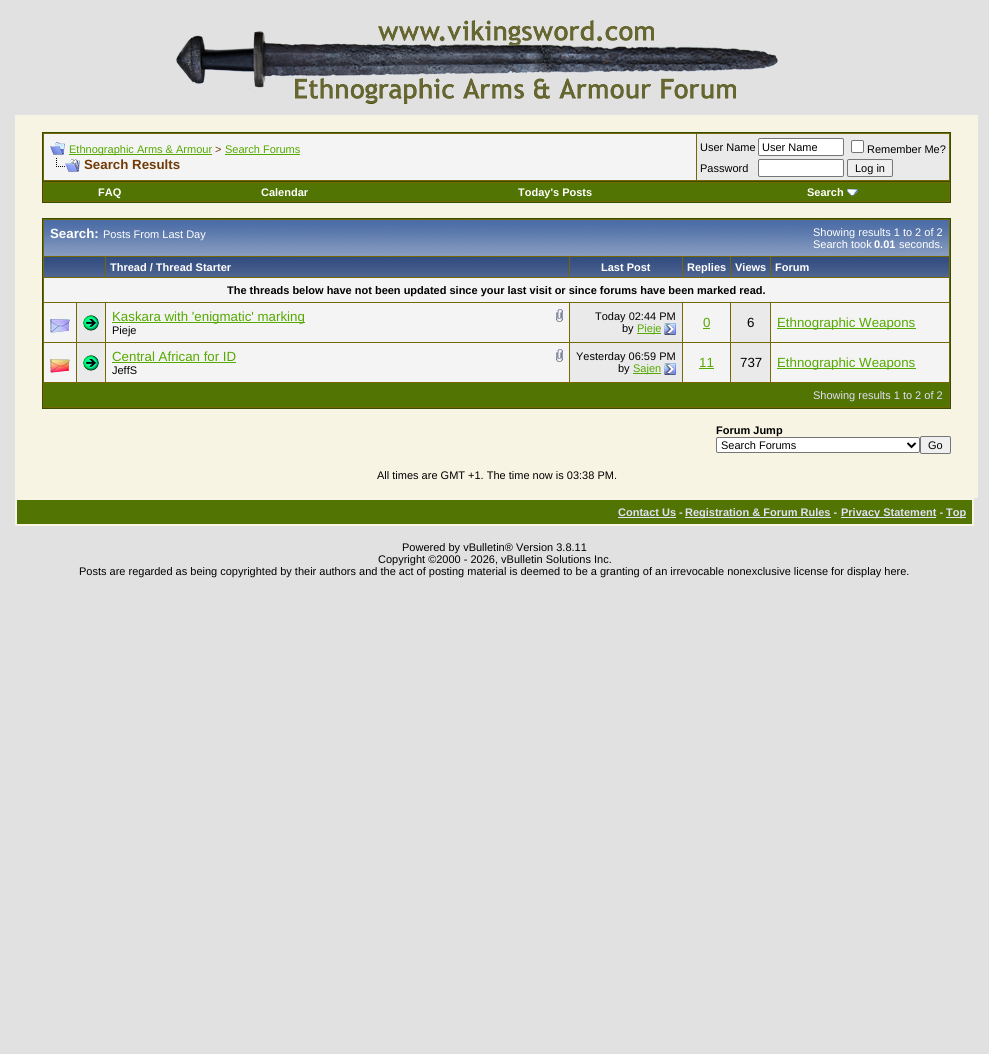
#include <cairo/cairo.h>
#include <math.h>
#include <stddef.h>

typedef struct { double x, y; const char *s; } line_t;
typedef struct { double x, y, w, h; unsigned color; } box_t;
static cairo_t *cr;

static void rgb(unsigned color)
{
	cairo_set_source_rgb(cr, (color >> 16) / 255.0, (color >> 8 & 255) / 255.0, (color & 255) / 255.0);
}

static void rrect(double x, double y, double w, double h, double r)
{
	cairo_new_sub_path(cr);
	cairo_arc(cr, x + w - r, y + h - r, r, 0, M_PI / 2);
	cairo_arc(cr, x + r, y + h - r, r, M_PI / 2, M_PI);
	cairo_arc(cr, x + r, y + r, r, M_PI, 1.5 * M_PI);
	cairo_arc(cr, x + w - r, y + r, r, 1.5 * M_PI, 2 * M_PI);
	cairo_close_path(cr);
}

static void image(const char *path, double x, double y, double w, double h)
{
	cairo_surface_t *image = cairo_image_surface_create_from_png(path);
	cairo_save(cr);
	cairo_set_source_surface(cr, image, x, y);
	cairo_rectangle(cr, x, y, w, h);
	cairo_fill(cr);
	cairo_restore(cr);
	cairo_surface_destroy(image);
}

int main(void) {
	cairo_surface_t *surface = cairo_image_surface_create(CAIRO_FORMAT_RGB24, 989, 1054);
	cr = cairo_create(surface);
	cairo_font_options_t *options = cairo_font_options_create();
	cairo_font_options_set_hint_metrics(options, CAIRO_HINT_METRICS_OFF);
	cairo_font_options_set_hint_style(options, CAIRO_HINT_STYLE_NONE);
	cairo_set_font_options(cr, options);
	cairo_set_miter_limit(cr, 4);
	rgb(0xe1e1e2);
	cairo_paint(cr);
	image("img/1.png", 176, 20, 602, 84);
	rgb(0xf7f4e4);
	cairo_rectangle(cr, 15, 115, 963, 383);
	cairo_fill(cr);
	rgb(0x756702);
	cairo_rectangle(cr, 42.5, 132.5, 908, 49);
	cairo_fill_preserve(cr);
	rgb(0x364d02);
	cairo_set_line_width(cr, 1);
	cairo_stroke(cr);
	rgb(0xf4f4f4);
	cairo_rectangle(cr, 44, 134, 652, 46);
	cairo_fill(cr);
	image("img/2.png", 50, 142, 15, 13);
	rgb(0x55a900);
	cairo_rectangle(cr, 69, 154, 143, 1);
	cairo_fill(cr);
	cairo_rectangle(cr, 225, 154, 75, 1);
	cairo_fill(cr);
	image("img/3.png", 56, 158, 24, 14);
	rgb(0xeaeaea);
	cairo_rectangle(cr, 697, 134, 252, 46);
	cairo_fill(cr);
	rgb(0xffffff);
	rrect(758.5, 138.5, 85, 17, 1.5);
	cairo_fill_preserve(cr);
	rgb(0x767676);
	cairo_stroke(cr);
	rgb(0xffffff);
	rrect(851.5, 140.5, 12, 12, 1.5);
	cairo_fill_preserve(cr);
	rgb(0x767676);
	cairo_stroke(cr);
	rgb(0xffffff);
	rrect(758.5, 159.5, 85, 17, 1.5);
	cairo_fill_preserve(cr);
	rgb(0x767676);
	cairo_stroke(cr);
	rgb(0xefefef);
	rrect(847.5, 159.5, 45, 17, 1.5);
	cairo_fill_preserve(cr);
	rgb(0x767676);
	cairo_stroke(cr);
	{
		static const box_t items[] = {
			{43, 182, 907, 20, 0x756702},
			{950, 182, 1, 21, 0x364d02},
			{42, 202, 909, 1, 0x364d02},
			{42, 182, 1, 21, 0x364d02},
			{44, 183, 905, 18, 0x527403},
		};
		for (size_t i = 0; i < sizeof items / sizeof *items; i++) {
			rgb(items[i].color);
			cairo_rectangle(cr, items[i].x, items[i].y, items[i].w, items[i].h);
			cairo_fill(cr);
		}
	}
	image("img/4.png", 847, 189, 11, 7);
	rgb(0x756702);
	cairo_rectangle(cr, 42.5, 218.5, 908, 190);
	cairo_fill_preserve(cr);
	rgb(0x364d02);
	cairo_stroke(cr);
	rgb(0x869bbf);
	cairo_rectangle(cr, 44, 253, 905, 3);
	cairo_fill(cr);
	image("img/5.png", 44, 220, 905, 33);
	image("img/6.png", 44, 257, 61, 20);
	image("img/7.png", 106, 257, 463, 20);
	image("img/8.png", 570, 257, 112, 20);
	image("img/9.png", 683, 257, 47, 20);
	image("img/10.png", 731, 257, 39, 20);
	image("img/11.png", 771, 257, 178, 20);
	rgb(0xf4f4f4);
	cairo_rectangle(cr, 44, 278, 905, 24);
	cairo_fill(cr);
	cairo_rectangle(cr, 44, 303, 32, 39);
	cairo_fill(cr);
	image("img/12.png", 50, 319, 20, 14);
	rgb(0xeaeaea);
	cairo_rectangle(cr, 77, 303, 28, 39);
	cairo_fill(cr);
	image("img/13.png", 83, 315, 16, 16);
	rgb(0xf4f4f4);
	cairo_rectangle(cr, 106, 303, 463, 39);
	cairo_fill(cr);
	rgb(0x55a900);
	cairo_rectangle(cr, 112, 322, 193, 1);
	cairo_fill(cr);
	image("img/14.png", 556, 309, 7, 13);
	rgb(0xeaeaea);
	cairo_rectangle(cr, 570, 303, 112, 39);
	cairo_fill(cr);
	rgb(0x55a900);
	cairo_rectangle(cr, 637, 333, 24, 1);
	cairo_fill(cr);
	image("img/15.png", 664, 323, 12, 12);
	{
		static const box_t items[] = {
			{683, 303, 47, 39, 0xf4f4f4},
			{703, 328, 7, 1, 0x55a900},
			{731, 303, 39, 39, 0xeaeaea},
			{771, 303, 178, 39, 0xf4f4f4},
			{777, 328, 139, 1, 0x55a900},
			{44, 343, 32, 39, 0xf4f4f4},
		};
		for (size_t i = 0; i < sizeof items / sizeof *items; i++) {
			rgb(items[i].color);
			cairo_rectangle(cr, items[i].x, items[i].y, items[i].w, items[i].h);
			cairo_fill(cr);
		}
	}
	image("img/16.png", 50, 359, 20, 14);
	rgb(0xeaeaea);
	cairo_rectangle(cr, 77, 343, 28, 39);
	cairo_fill(cr);
	image("img/13.png", 83, 355, 16, 16);
	rgb(0xf4f4f4);
	cairo_rectangle(cr, 106, 343, 463, 39);
	cairo_fill(cr);
	rgb(0x55a900);
	cairo_rectangle(cr, 112, 362, 124, 1);
	cairo_fill(cr);
	image("img/14.png", 556, 349, 7, 13);
	rgb(0xeaeaea);
	cairo_rectangle(cr, 570, 343, 112, 39);
	cairo_fill(cr);
	rgb(0x55a900);
	cairo_rectangle(cr, 633, 373, 28, 1);
	cairo_fill(cr);
	image("img/15.png", 664, 363, 12, 12);
	{
		static const box_t items[] = {
			{683, 343, 47, 39, 0xf4f4f4},
			{699, 368, 15, 1, 0x55a900},
			{731, 343, 39, 39, 0xeaeaea},
			{771, 343, 178, 39, 0xf4f4f4},
			{777, 368, 139, 1, 0x55a900},
			{44, 383, 905, 24, 0x527403},
		};
		for (size_t i = 0; i < sizeof items / sizeof *items; i++) {
			rgb(items[i].color);
			cairo_rectangle(cr, items[i].x, items[i].y, items[i].w, items[i].h);
			cairo_fill(cr);
		}
	}
	rgb(0xffffff);
	rrect(716.5, 437.5, 203, 15, 1.5);
	cairo_fill_preserve(cr);
	rgb(0x767676);
	cairo_stroke(cr);
	cairo_new_path(cr);
	cairo_move_to(cr, 907.5, 443);
	cairo_line_to(cr, 911.5, 447);
	cairo_line_to(cr, 915.5, 443);
	rgb(0x000000);
	cairo_set_line_width(cr, 2);
	cairo_stroke(cr);
	rgb(0xefefef);
	rrect(920.5, 436.5, 30, 17, 1.5);
	cairo_fill_preserve(cr);
	rgb(0x767676);
	cairo_set_line_width(cr, 1);
	cairo_stroke(cr);
	{
		static const box_t items[] = {
			{15, 498, 959, 28, 0xf7f4e4},
			{17, 500, 955, 24, 0x527403},
			{618, 517, 58, 1, 0xe0e0f6},
			{685, 517, 146, 1, 0xe0e0f6},
			{841, 517, 95, 1, 0xe0e0f6},
			{946, 517, 20, 1, 0xe0e0f6},
		};
		for (size_t i = 0; i < sizeof items / sizeof *items; i++) {
			rgb(items[i].color);
			cairo_rectangle(cr, items[i].x, items[i].y, items[i].w, items[i].h);
			cairo_fill(cr);
		}
	}
	cairo_select_font_face(cr, "Liberation Sans", CAIRO_FONT_SLANT_NORMAL, CAIRO_FONT_WEIGHT_NORMAL);
	cairo_set_font_size(cr, 11);
	rgb(0x55a900);
	cairo_move_to(cr, 69, 153);
	cairo_show_text(cr, "Ethnographic Arms & Armour");
	rgb(0x713b07);
	cairo_move_to(cr, 215, 153);
	cairo_show_text(cr, ">");
	rgb(0x55a900);
	cairo_move_to(cr, 225, 153);
	cairo_show_text(cr, "Search Forums");
	cairo_select_font_face(cr, "Liberation Sans", CAIRO_FONT_SLANT_NORMAL, CAIRO_FONT_WEIGHT_BOLD);
	cairo_set_font_size(cr, 13.3);
	rgb(0x713b07);
	cairo_move_to(cr, 84, 169);
	cairo_show_text(cr, "Search Results");
	cairo_select_font_face(cr, "Liberation Sans", CAIRO_FONT_SLANT_NORMAL, CAIRO_FONT_WEIGHT_NORMAL);
	cairo_set_font_size(cr, 11);
	rgb(0x000000);
	{
		static const line_t items[] = {
			{700, 151, "User Name"},
			{762, 151, "User Name"},
			{867, 153, "Remember Me?"},
			{700, 172, "Password"},
			{855, 172, "Log in"},
		};
		for (size_t i = 0; i < sizeof items / sizeof *items; i++) {
			cairo_move_to(cr, items[i].x, items[i].y);
			cairo_show_text(cr, items[i].s);
		}
	}
	cairo_select_font_face(cr, "Liberation Sans", CAIRO_FONT_SLANT_NORMAL, CAIRO_FONT_WEIGHT_BOLD);
	rgb(0xffffff);
	{
		static const line_t items[] = {
			{98, 196, "FAQ"},
			{261, 196, "Calendar"},
			{518, 196, "Today's Posts"},
			{807, 196, "Search"},
		};
		for (size_t i = 0; i < sizeof items / sizeof *items; i++) {
			cairo_move_to(cr, items[i].x, items[i].y);
			cairo_show_text(cr, items[i].s);
		}
	}
	cairo_set_font_size(cr, 13.3);
	cairo_move_to(cr, 50, 238);
	cairo_show_text(cr, "Search:");
	cairo_select_font_face(cr, "Liberation Sans", CAIRO_FONT_SLANT_NORMAL, CAIRO_FONT_WEIGHT_NORMAL);
	cairo_set_font_size(cr, 11);
	{
		static const line_t items[] = {
			{103, 238, "Posts From Last Day"},
			{813, 236, "Showing results 1 to 2 of 2"},
			{813, 248, "Search took"},
		};
		for (size_t i = 0; i < sizeof items / sizeof *items; i++) {
			cairo_move_to(cr, items[i].x, items[i].y);
			cairo_show_text(cr, items[i].s);
		}
	}
	cairo_select_font_face(cr, "Liberation Sans", CAIRO_FONT_SLANT_NORMAL, CAIRO_FONT_WEIGHT_BOLD);
	cairo_move_to(cr, 874, 248);
	cairo_show_text(cr, "0.01");
	cairo_select_font_face(cr, "Liberation Sans", CAIRO_FONT_SLANT_NORMAL, CAIRO_FONT_WEIGHT_NORMAL);
	cairo_move_to(cr, 899, 248);
	cairo_show_text(cr, "seconds.");
	cairo_select_font_face(cr, "Liberation Sans", CAIRO_FONT_SLANT_NORMAL, CAIRO_FONT_WEIGHT_BOLD);
	{
		static const line_t items[] = {
			{110, 271, "Thread / Thread Starter"},
			{601, 271, "Last Post"},
			{687, 271, "Replies"},
			{735, 271, "Views"},
			{775, 271, "Forum"},
		};
		for (size_t i = 0; i < sizeof items / sizeof *items; i++) {
			cairo_move_to(cr, items[i].x, items[i].y);
			cairo_show_text(cr, items[i].s);
		}
	}
	rgb(0x000000);
	cairo_move_to(cr, 227, 294);
	cairo_show_text(cr, "The threads below have not been updated since your last visit or since forums have been marked read.");
	cairo_select_font_face(cr, "Liberation Sans", CAIRO_FONT_SLANT_NORMAL, CAIRO_FONT_WEIGHT_NORMAL);
	cairo_set_font_size(cr, 13.3);
	rgb(0x55a900);
	cairo_move_to(cr, 112, 321);
	cairo_show_text(cr, "Kaskara with 'enigmatic' marking");
	cairo_set_font_size(cr, 11);
	rgb(0x000000);
	{
		static const line_t items[] = {
			{112, 334, "Pieje"},
			{595, 320, "Today 02:44 PM"},
			{622, 332, "by"},
		};
		for (size_t i = 0; i < sizeof items / sizeof *items; i++) {
			cairo_move_to(cr, items[i].x, items[i].y);
			cairo_show_text(cr, items[i].s);
		}
	}
	rgb(0x55a900);
	cairo_move_to(cr, 637, 332);
	cairo_show_text(cr, "Pieje");
	cairo_set_font_size(cr, 13.3);
	cairo_move_to(cr, 703, 327);
	cairo_show_text(cr, "0");
	rgb(0x000000);
	cairo_move_to(cr, 747, 327);
	cairo_show_text(cr, "6");
	rgb(0x55a900);
	cairo_move_to(cr, 777, 327);
	cairo_show_text(cr, "Ethnographic Weapons");
	cairo_move_to(cr, 112, 361);
	cairo_show_text(cr, "Central African for ID");
	cairo_set_font_size(cr, 11);
	rgb(0x000000);
	{
		static const line_t items[] = {
			{112, 374, "JeffS"},
			{576, 360, "Yesterday 06:59 PM"},
			{618, 372, "by"},
		};
		for (size_t i = 0; i < sizeof items / sizeof *items; i++) {
			cairo_move_to(cr, items[i].x, items[i].y);
			cairo_show_text(cr, items[i].s);
		}
	}
	rgb(0x55a900);
	cairo_move_to(cr, 633, 372);
	cairo_show_text(cr, "Sajen");
	cairo_set_font_size(cr, 13.3);
	cairo_move_to(cr, 699, 367);
	cairo_show_text(cr, "11");
	rgb(0x000000);
	cairo_move_to(cr, 740, 367);
	cairo_show_text(cr, "737");
	rgb(0x55a900);
	cairo_move_to(cr, 777, 367);
	cairo_show_text(cr, "Ethnographic Weapons");
	cairo_set_font_size(cr, 11);
	rgb(0xe0e0f6);
	cairo_move_to(cr, 813, 399);
	cairo_show_text(cr, "Showing results 1 to 2 of 2");
	cairo_select_font_face(cr, "Liberation Sans", CAIRO_FONT_SLANT_NORMAL, CAIRO_FONT_WEIGHT_BOLD);
	rgb(0x000000);
	cairo_move_to(cr, 716, 434);
	cairo_show_text(cr, "Forum Jump");
	cairo_select_font_face(cr, "Liberation Sans", CAIRO_FONT_SLANT_NORMAL, CAIRO_FONT_WEIGHT_NORMAL);
	{
		static const line_t items[] = {
			{721, 449, "Search Forums"},
			{928, 449, "Go"},
			{377, 479, "All times are GMT +1. The time now is 03:38 PM."},
		};
		for (size_t i = 0; i < sizeof items / sizeof *items; i++) {
			cairo_move_to(cr, items[i].x, items[i].y);
			cairo_show_text(cr, items[i].s);
		}
	}
	cairo_select_font_face(cr, "Liberation Sans", CAIRO_FONT_SLANT_NORMAL, CAIRO_FONT_WEIGHT_BOLD);
	rgb(0xe0e0f6);
	{
		static const line_t items[] = {
			{618, 516, "Contact Us -"},
			{685, 516, "Registration & Forum Rules -"},
			{841, 516, "Privacy Statement -"},
			{946, 516, "Top"},
		};
		for (size_t i = 0; i < sizeof items / sizeof *items; i++) {
			cairo_move_to(cr, items[i].x, items[i].y);
			cairo_show_text(cr, items[i].s);
		}
	}
	cairo_select_font_face(cr, "Liberation Sans", CAIRO_FONT_SLANT_NORMAL, CAIRO_FONT_WEIGHT_NORMAL);
	rgb(0x000000);
	{
		static const line_t items[] = {
			{402, 551, "Powered by vBulletin® Version 3.8.11"},
			{378, 563, "Copyright ©2000 - 2026, vBulletin Solutions Inc."},
			{79, 575, "Posts are regarded as being copyrighted by their authors and the act of posting material is deemed to be a granting of an irrevocable nonexclusive license for display here."},
		};
		for (size_t i = 0; i < sizeof items / sizeof *items; i++) {
			cairo_move_to(cr, items[i].x, items[i].y);
			cairo_show_text(cr, items[i].s);
		}
	}
	cairo_surface_write_to_png(surface, "page.png");
	cairo_font_options_destroy(options);
	cairo_destroy(cr);
	cairo_surface_destroy(surface);
	return 0;
}
